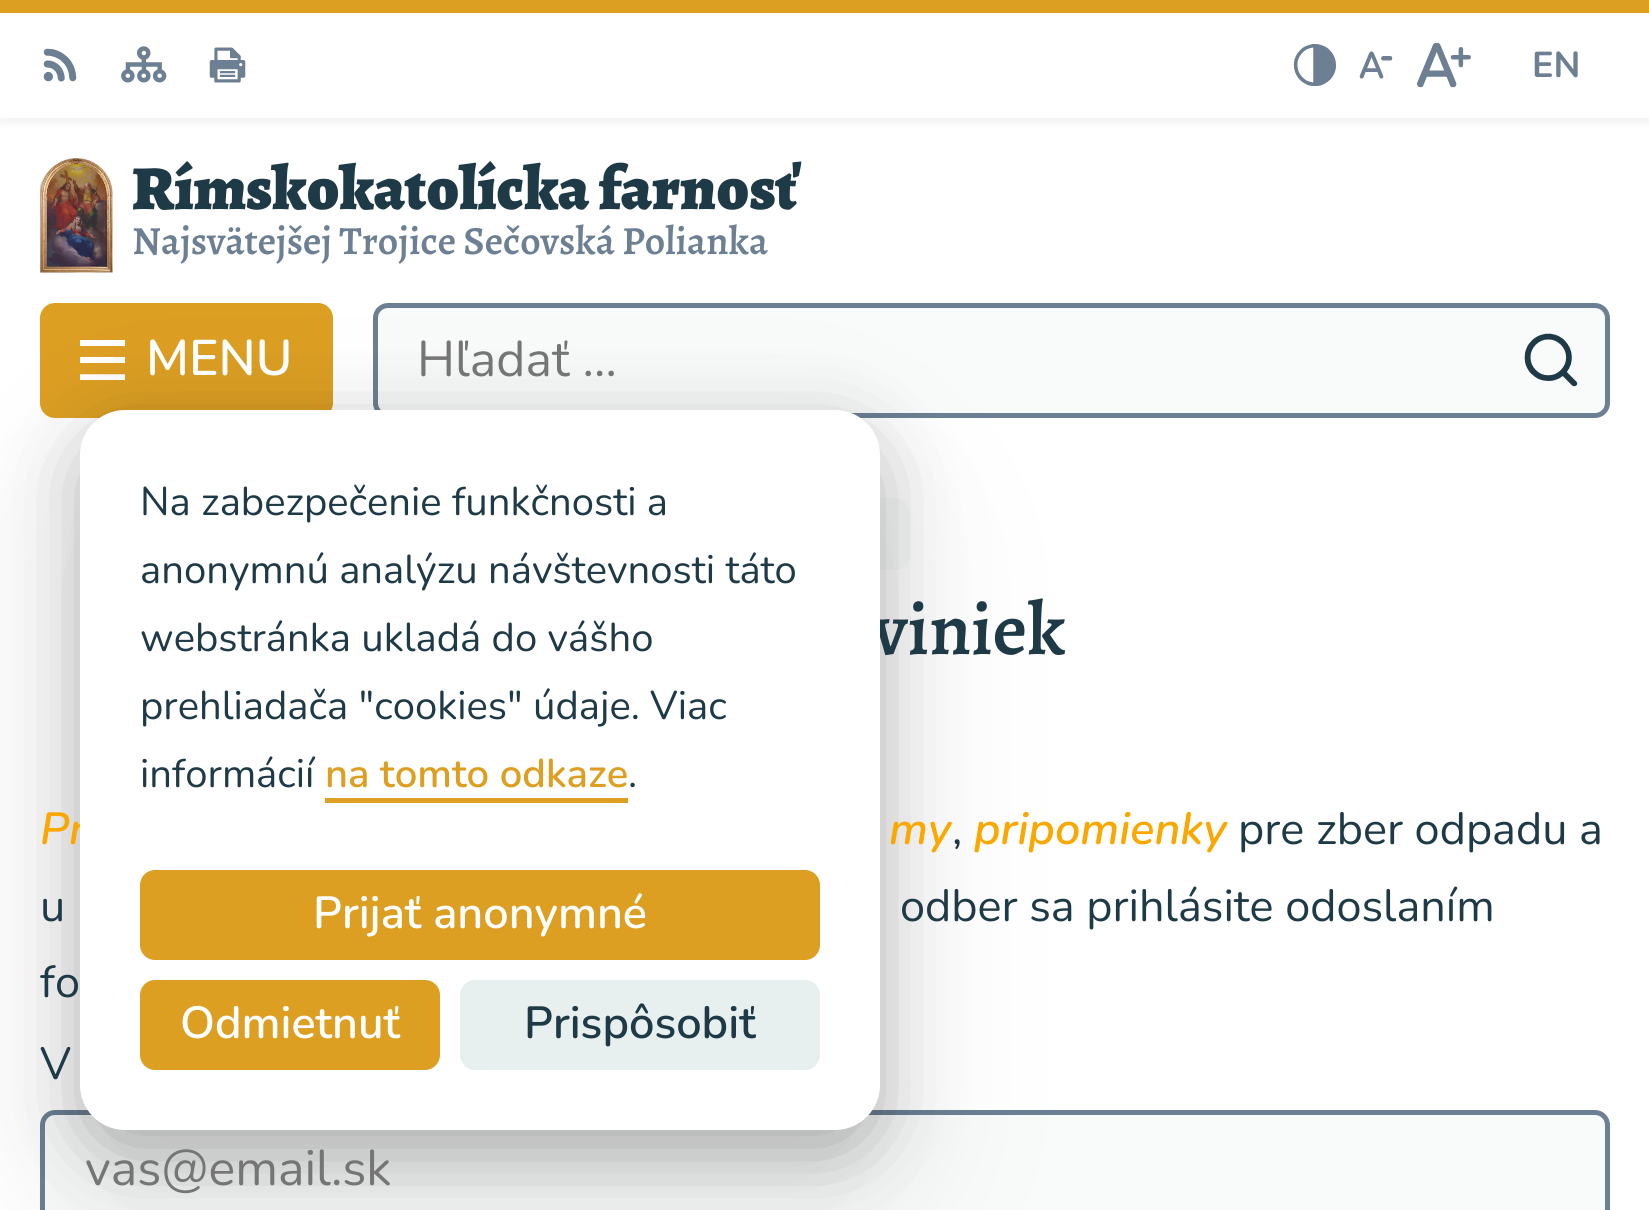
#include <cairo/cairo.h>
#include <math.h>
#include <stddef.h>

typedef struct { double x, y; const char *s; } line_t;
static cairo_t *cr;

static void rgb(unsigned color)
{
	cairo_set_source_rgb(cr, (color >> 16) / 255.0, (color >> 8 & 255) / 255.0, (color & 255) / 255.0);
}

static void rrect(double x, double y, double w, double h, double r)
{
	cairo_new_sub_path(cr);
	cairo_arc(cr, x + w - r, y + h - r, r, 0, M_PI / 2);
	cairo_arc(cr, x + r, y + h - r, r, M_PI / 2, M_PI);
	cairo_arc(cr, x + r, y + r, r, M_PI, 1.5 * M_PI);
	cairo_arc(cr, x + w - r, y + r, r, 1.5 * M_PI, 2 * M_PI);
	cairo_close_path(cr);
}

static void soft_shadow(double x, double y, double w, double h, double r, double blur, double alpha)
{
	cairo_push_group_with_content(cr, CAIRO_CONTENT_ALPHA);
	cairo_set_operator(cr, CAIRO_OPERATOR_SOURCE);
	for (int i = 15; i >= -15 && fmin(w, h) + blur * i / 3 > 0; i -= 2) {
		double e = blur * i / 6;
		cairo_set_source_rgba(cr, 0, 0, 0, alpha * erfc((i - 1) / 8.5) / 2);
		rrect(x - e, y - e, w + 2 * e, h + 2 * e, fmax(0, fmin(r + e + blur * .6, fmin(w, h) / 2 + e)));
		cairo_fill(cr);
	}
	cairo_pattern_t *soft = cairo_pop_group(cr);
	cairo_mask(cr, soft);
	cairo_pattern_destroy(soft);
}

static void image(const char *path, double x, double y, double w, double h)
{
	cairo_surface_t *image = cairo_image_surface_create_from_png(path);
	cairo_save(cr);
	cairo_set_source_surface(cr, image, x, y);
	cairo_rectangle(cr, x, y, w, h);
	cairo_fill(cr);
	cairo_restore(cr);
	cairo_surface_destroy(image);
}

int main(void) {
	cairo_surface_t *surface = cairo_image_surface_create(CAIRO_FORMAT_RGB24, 1649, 1210);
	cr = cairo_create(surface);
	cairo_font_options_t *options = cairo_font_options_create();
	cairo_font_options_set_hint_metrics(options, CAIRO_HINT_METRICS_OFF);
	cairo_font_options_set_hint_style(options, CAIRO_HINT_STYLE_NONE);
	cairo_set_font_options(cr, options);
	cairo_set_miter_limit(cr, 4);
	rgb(0xffffff);
	cairo_paint(cr);
	rgb(0xdd9f22);
	cairo_rectangle(cr, 0, 0, 1649, 13);
	cairo_fill(cr);
	cairo_save(cr);
	cairo_set_fill_rule(cr, CAIRO_FILL_RULE_EVEN_ODD);
	cairo_new_path(cr);
	cairo_move_to(cr, 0, 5);
	cairo_line_to(cr, 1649, 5);
	cairo_line_to(cr, 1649, 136);
	cairo_line_to(cr, 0, 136);
	cairo_close_path(cr);
	cairo_move_to(cr, 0, 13);
	cairo_line_to(cr, 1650, 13);
	cairo_line_to(cr, 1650, 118);
	cairo_line_to(cr, 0, 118);
	cairo_close_path(cr);
	cairo_clip(cr);
	rgb(0x000000);
	soft_shadow(0, 18, 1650, 105, 0, 4, 0.05);
	cairo_restore(cr);
	image("img/1.png", 43, 48, 34, 34);
	image("img/2.png", 121, 46, 46, 37);
	image("img/3.png", 209, 47, 37, 36);
	image("img/4.png", 1293, 44, 44, 42);
	image("img/5.png", 1359, 51, 34, 28);
	image("img/6.png", 1417, 42, 54, 46);
	image("img/7.png", 40, 158, 73, 115);
	rrect(40, 303, 293, 115, 15);
	cairo_fill(cr);
	image("img/8.png", 80, 340, 45, 40);
	rgb(0xf9fbfb);
	rrect(375.5, 305.5, 1232, 110, 12.5);
	cairo_fill_preserve(cr);
	rgb(0x6c7f93);
	cairo_set_line_width(cr, 5);
	cairo_stroke(cr);
	image("img/9.png", 1524, 333, 54, 54);
	rgb(0xf9fbfb);
	rrect(740, 498, 170, 72, 15);
	cairo_fill(cr);
	rrect(42.5, 1112.5, 1565, 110, 12.5);
	cairo_fill_preserve(cr);
	rgb(0x6c7f93);
	cairo_stroke(cr);
	rgb(0x000000);
	soft_shadow(80, 485, 800, 720, 45, 112.5, 0.05);
	soft_shadow(80, 460, 800, 720, 45, 75, 0.05);
	soft_shadow(80, 435, 800, 720, 45, 37.5, 0.25);
	cairo_select_font_face(cr, "Nunito", CAIRO_FONT_SLANT_NORMAL, CAIRO_FONT_WEIGHT_BOLD);
	cairo_set_font_size(cr, 36);
	rgb(0x6c7f93);
	cairo_move_to(cr, 1532, 77);
	cairo_show_text(cr, "EN");
	cairo_select_font_face(cr, "Alegreya Black", CAIRO_FONT_SLANT_NORMAL, CAIRO_FONT_WEIGHT_NORMAL);
	cairo_set_font_size(cr, 62.5);
	rgb(0x1f3a47);
	cairo_move_to(cr, 132, 209);
	cairo_show_text(cr, "Rímskokatolícka farnosť");
	cairo_select_font_face(cr, "Alegreya SemiBold", CAIRO_FONT_SLANT_NORMAL, CAIRO_FONT_WEIGHT_NORMAL);
	cairo_set_font_size(cr, 40);
	rgb(0x6c7f93);
	cairo_move_to(cr, 132, 254);
	cairo_show_text(cr, "Najsvätejšej Trojice Sečovská Polianka");
	cairo_select_font_face(cr, "Nunito SemiBold", CAIRO_FONT_SLANT_NORMAL, CAIRO_FONT_WEIGHT_NORMAL);
	cairo_set_font_size(cr, 50);
	rgb(0xffffff);
	cairo_move_to(cr, 146, 375);
	cairo_show_text(cr, "MENU");
	cairo_select_font_face(cr, "Nunito", CAIRO_FONT_SLANT_NORMAL, CAIRO_FONT_WEIGHT_NORMAL);
	rgb(0x757575);
	cairo_move_to(cr, 417, 376);
	cairo_show_text(cr, "Hľadať …");
	cairo_select_font_face(cr, "Alegreya SemiBold", CAIRO_FONT_SLANT_NORMAL, CAIRO_FONT_WEIGHT_NORMAL);
	cairo_set_font_size(cr, 75);
	rgb(0x1f3a47);
	cairo_move_to(cr, 873, 654);
	cairo_show_text(cr, "viniek");
	cairo_select_font_face(cr, "Nunito SemiBold", CAIRO_FONT_SLANT_ITALIC, CAIRO_FONT_WEIGHT_NORMAL);
	cairo_set_font_size(cr, 45);
	rgb(0xfaa700);
	cairo_move_to(cr, 40, 844);
	cairo_show_text(cr, "Pr");
	cairo_move_to(cr, 889, 844);
	cairo_show_text(cr, "my");
	cairo_select_font_face(cr, "Nunito", CAIRO_FONT_SLANT_NORMAL, CAIRO_FONT_WEIGHT_NORMAL);
	rgb(0x1f3a47);
	cairo_move_to(cr, 952, 844);
	cairo_show_text(cr, ",");
	cairo_select_font_face(cr, "Nunito SemiBold", CAIRO_FONT_SLANT_ITALIC, CAIRO_FONT_WEIGHT_NORMAL);
	rgb(0xfaa700);
	cairo_move_to(cr, 974, 844);
	cairo_show_text(cr, "pripomienky");
	cairo_select_font_face(cr, "Nunito", CAIRO_FONT_SLANT_NORMAL, CAIRO_FONT_WEIGHT_NORMAL);
	rgb(0x1f3a47);
	{
		static const line_t items[] = {
			{1238, 844, "pre zber odpadu a"},
			{40, 921, "u"},
			{900, 921, "odber sa prihlásite odoslaním"},
			{40, 997, "fo"},
			{40, 1079, "V"},
		};
		for (size_t i = 0; i < sizeof items / sizeof *items; i++) {
			cairo_move_to(cr, items[i].x, items[i].y);
			cairo_show_text(cr, items[i].s);
		}
	}
	cairo_set_font_size(cr, 50);
	rgb(0x757575);
	cairo_move_to(cr, 85, 1185);
	cairo_show_text(cr, "vas@email.sk");
	rgb(0xffffff);
	rrect(80, 410, 800, 720, 45);
	cairo_fill(cr);
	cairo_set_font_size(cr, 40);
	rgb(0x1f3a47);
	{
		static const line_t items[] = {
			{140, 515, "Na zabezpečenie funkčnosti a"},
			{140, 583, "anonymnú analýzu návštevnosti táto"},
			{140, 651, "webstránka ukladá do vášho"},
			{140, 719, "prehliadača \"cookies\" údaje. Viac"},
			{140, 787, "informácií"},
		};
		for (size_t i = 0; i < sizeof items / sizeof *items; i++) {
			cairo_move_to(cr, items[i].x, items[i].y);
			cairo_show_text(cr, items[i].s);
		}
	}
	cairo_select_font_face(cr, "Nunito SemiBold", CAIRO_FONT_SLANT_NORMAL, CAIRO_FONT_WEIGHT_NORMAL);
	rgb(0xdd9f22);
	cairo_move_to(cr, 325, 787);
	cairo_show_text(cr, "na tomto odkaze");
	cairo_rectangle(cr, 325, 798, 303, 5);
	cairo_fill(cr);
	cairo_select_font_face(cr, "Nunito", CAIRO_FONT_SLANT_NORMAL, CAIRO_FONT_WEIGHT_NORMAL);
	rgb(0x1f3a47);
	cairo_move_to(cr, 628, 787);
	cairo_show_text(cr, ".");
	rgb(0xdd9f22);
	rrect(140, 870, 680, 90, 15);
	cairo_fill(cr);
	cairo_select_font_face(cr, "Nunito SemiBold", CAIRO_FONT_SLANT_NORMAL, CAIRO_FONT_WEIGHT_NORMAL);
	cairo_set_font_size(cr, 45);
	rgb(0xffffff);
	cairo_move_to(cr, 313, 928);
	cairo_show_text(cr, "Prijať anonymné");
	rgb(0xdd9f22);
	rrect(140, 980, 300, 90, 15);
	cairo_fill(cr);
	rgb(0xffffff);
	cairo_move_to(cr, 180, 1038);
	cairo_show_text(cr, "Odmietnuť");
	rgb(0xe7efef);
	rrect(460, 980, 360, 90, 15);
	cairo_fill(cr);
	rgb(0x1f3a47);
	cairo_move_to(cr, 524, 1038);
	cairo_show_text(cr, "Prispôsobiť");
	cairo_surface_write_to_png(surface, "page.png");
	cairo_font_options_destroy(options);
	cairo_destroy(cr);
	cairo_surface_destroy(surface);
	return 0;
}
